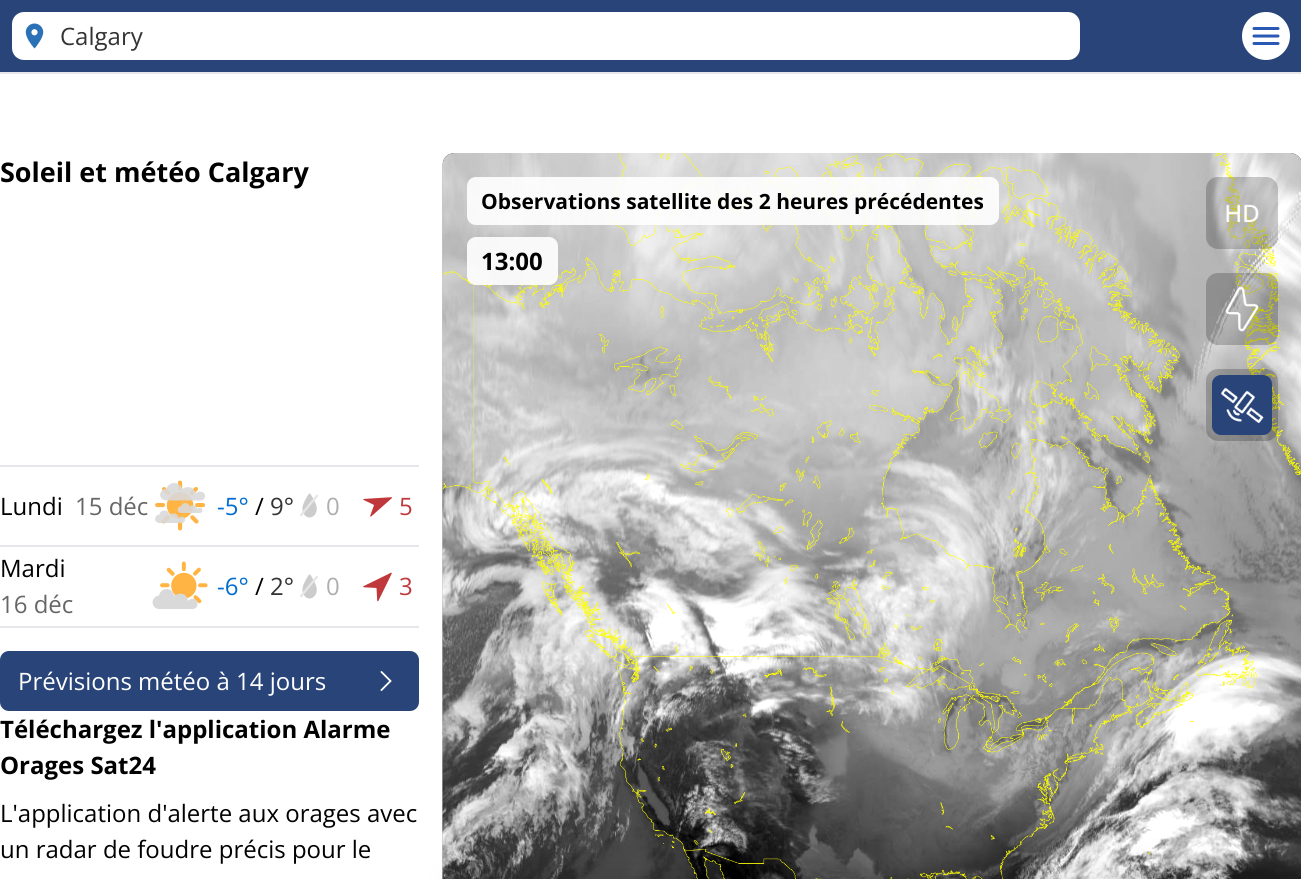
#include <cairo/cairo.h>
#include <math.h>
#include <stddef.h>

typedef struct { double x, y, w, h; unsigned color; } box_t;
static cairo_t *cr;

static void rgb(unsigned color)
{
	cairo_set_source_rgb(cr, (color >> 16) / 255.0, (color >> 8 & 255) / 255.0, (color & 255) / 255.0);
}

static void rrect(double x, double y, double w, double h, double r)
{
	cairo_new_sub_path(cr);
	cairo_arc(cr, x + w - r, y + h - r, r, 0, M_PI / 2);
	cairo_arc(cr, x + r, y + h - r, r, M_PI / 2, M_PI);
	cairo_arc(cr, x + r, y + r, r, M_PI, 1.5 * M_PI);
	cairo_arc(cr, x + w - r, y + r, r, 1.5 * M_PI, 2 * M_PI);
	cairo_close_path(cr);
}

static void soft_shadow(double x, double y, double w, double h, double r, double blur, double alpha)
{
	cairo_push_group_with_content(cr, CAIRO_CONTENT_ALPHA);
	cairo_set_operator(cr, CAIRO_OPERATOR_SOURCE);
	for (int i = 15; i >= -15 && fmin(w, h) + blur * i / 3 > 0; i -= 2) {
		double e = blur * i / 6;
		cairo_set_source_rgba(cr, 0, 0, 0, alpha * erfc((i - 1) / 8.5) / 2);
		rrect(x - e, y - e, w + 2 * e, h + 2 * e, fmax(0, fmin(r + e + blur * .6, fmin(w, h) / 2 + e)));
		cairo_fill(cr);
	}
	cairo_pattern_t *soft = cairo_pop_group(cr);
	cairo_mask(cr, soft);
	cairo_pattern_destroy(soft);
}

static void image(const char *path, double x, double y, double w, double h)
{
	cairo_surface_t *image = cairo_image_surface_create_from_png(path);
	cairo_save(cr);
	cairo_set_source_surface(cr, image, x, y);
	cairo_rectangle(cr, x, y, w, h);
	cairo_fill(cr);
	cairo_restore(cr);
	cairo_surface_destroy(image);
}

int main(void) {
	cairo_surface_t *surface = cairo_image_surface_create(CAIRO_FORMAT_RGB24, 1301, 879);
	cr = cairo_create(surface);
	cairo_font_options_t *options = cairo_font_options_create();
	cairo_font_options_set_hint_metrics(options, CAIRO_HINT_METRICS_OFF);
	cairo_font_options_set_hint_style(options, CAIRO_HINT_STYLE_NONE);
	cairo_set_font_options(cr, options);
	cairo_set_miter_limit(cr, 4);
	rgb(0xffffff);
	cairo_paint(cr);
	rgb(0x294479);
	cairo_rectangle(cr, 0, 0, 1301, 72);
	cairo_fill(cr);
	rgb(0xffffff);
	rrect(12, 12, 1068, 48, 12);
	cairo_fill(cr);
	image("img/1.png", 25, 23, 19, 26);
	cairo_arc(cr, 1266, 36, 24, 0, 2 * M_PI);
	cairo_fill(cr);
	cairo_new_path(cr);
	cairo_move_to(cr, 1254, 36);
	cairo_line_to(cr, 1278, 36);
	cairo_move_to(cr, 1254, 28.5);
	cairo_line_to(cr, 1278, 28.5);
	cairo_move_to(cr, 1254, 43.5);
	cairo_line_to(cr, 1278, 43.5);
	rgb(0x2a59b5);
	cairo_set_line_width(cr, 3);
	cairo_set_line_cap(cr, CAIRO_LINE_CAP_ROUND);
	cairo_stroke(cr);
	{
		static const box_t items[] = {
			{0, 72, 1301, 2, 0xe5e7eb},
			{0, 465, 419, 2, 0xe5e7eb},
			{0, 545, 419, 2, 0xe5e7eb},
		};
		for (size_t i = 0; i < sizeof items / sizeof *items; i++) {
			rgb(items[i].color);
			cairo_rectangle(cr, items[i].x, items[i].y, items[i].w, items[i].h);
			cairo_fill(cr);
		}
	}
	image("img/2.png", 155, 480, 51, 51);
	image("img/3.png", 300, 493, 18, 25);
	image("img/4.png", 363, 497, 29, 20);
	cairo_rectangle(cr, 0, 626, 419, 2);
	cairo_fill(cr);
	image("img/5.png", 152, 561, 56, 48);
	image("img/3.png", 300, 574, 18, 25);
	image("img/6.png", 363, 572, 29, 30);
	rgb(0x294479);
	rrect(0, 651, 419, 60, 9);
	cairo_fill(cr);
	image("img/7.png", 380, 671, 12, 20);
	image("img/8.png", 442, 153, 859, 726);
	image("img/9.png", 442, 153, 859, 726);
	image("img/10.png", 442, 153, 859, 726);
	cairo_set_source_rgba(cr, 0, 0, 0, 0.21);
	rrect(1206, 177, 72, 72, 12);
	cairo_fill(cr);
	image("img/11.png", 1226, 204, 33, 18);
	rrect(1206, 273, 72, 72, 12);
	cairo_fill(cr);
	image("img/12.png", 1225, 286, 34, 46);
	rrect(1206, 369, 72, 72, 12);
	cairo_fill(cr);
	rgb(0x294479);
	rrect(1212, 375, 60, 60, 9);
	cairo_fill(cr);
	image("img/13.png", 1221, 387, 43, 37);
	rgb(0x000000);
	soft_shadow(467, 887, 811, 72, 12, 22.5, 0.21);
	cairo_set_source_rgba(cr, 1, 1, 1, 0.9);
	rrect(467, 177, 532, 48, 9);
	cairo_fill(cr);
	rrect(467, 237, 91, 48, 9);
	cairo_fill(cr);
	cairo_select_font_face(cr, "Open Sans", CAIRO_FONT_SLANT_NORMAL, CAIRO_FONT_WEIGHT_NORMAL);
	cairo_set_font_size(cr, 24);
	rgb(0x333333);
	cairo_move_to(cr, 60, 45);
	cairo_show_text(cr, "Calgary");
	cairo_select_font_face(cr, "Open Sans", CAIRO_FONT_SLANT_NORMAL, CAIRO_FONT_WEIGHT_BOLD);
	cairo_set_font_size(cr, 27);
	rgb(0x000000);
	cairo_move_to(cr, 0, 182);
	cairo_show_text(cr, "Soleil et météo Calgary");
	cairo_select_font_face(cr, "Open Sans", CAIRO_FONT_SLANT_NORMAL, CAIRO_FONT_WEIGHT_NORMAL);
	cairo_set_font_size(cr, 24);
	cairo_move_to(cr, 0, 515);
	cairo_show_text(cr, "Lundi");
	rgb(0x666666);
	cairo_move_to(cr, 75, 515);
	cairo_show_text(cr, "15 déc");
	rgb(0x026dd1);
	cairo_move_to(cr, 217, 515);
	cairo_show_text(cr, "-5°");
	rgb(0x000000);
	cairo_move_to(cr, 255, 515);
	cairo_show_text(cr, "/");
	rgb(0x333333);
	cairo_move_to(cr, 270, 515);
	cairo_show_text(cr, "9°");
	rgb(0xaeaeae);
	cairo_move_to(cr, 326, 515);
	cairo_show_text(cr, "0");
	rgb(0xbf383b);
	cairo_move_to(cr, 399, 515);
	cairo_show_text(cr, "5");
	rgb(0x000000);
	cairo_move_to(cr, 0, 577);
	cairo_show_text(cr, "Mardi");
	rgb(0x666666);
	cairo_move_to(cr, 0, 613);
	cairo_show_text(cr, "16 déc");
	rgb(0x026dd1);
	cairo_move_to(cr, 217, 595);
	cairo_show_text(cr, "-6°");
	rgb(0x000000);
	cairo_move_to(cr, 255, 595);
	cairo_show_text(cr, "/");
	rgb(0x333333);
	cairo_move_to(cr, 270, 595);
	cairo_show_text(cr, "2°");
	rgb(0xaeaeae);
	cairo_move_to(cr, 326, 595);
	cairo_show_text(cr, "0");
	rgb(0xbf383b);
	cairo_move_to(cr, 399, 595);
	cairo_show_text(cr, "3");
	rgb(0xffffff);
	cairo_move_to(cr, 18, 690);
	cairo_show_text(cr, "Prévisions météo à 14 jours");
	cairo_select_font_face(cr, "Open Sans", CAIRO_FONT_SLANT_NORMAL, CAIRO_FONT_WEIGHT_BOLD);
	rgb(0x000000);
	cairo_move_to(cr, 0, 738);
	cairo_show_text(cr, "Téléchargez l'application Alarme");
	cairo_move_to(cr, 0, 774);
	cairo_show_text(cr, "Orages Sat24");
	cairo_select_font_face(cr, "Open Sans", CAIRO_FONT_SLANT_NORMAL, CAIRO_FONT_WEIGHT_NORMAL);
	cairo_move_to(cr, 0, 822);
	cairo_show_text(cr, "L'application d'alerte aux orages avec");
	cairo_move_to(cr, 0, 858);
	cairo_show_text(cr, "un radar de foudre précis pour le");
	cairo_select_font_face(cr, "Open Sans", CAIRO_FONT_SLANT_NORMAL, CAIRO_FONT_WEIGHT_BOLD);
	cairo_set_font_size(cr, 21);
	cairo_move_to(cr, 481, 209);
	cairo_show_text(cr, "Observations satellite des 2 heures précédentes");
	cairo_set_font_size(cr, 24);
	cairo_move_to(cr, 481, 270);
	cairo_show_text(cr, "13:00");
	cairo_surface_write_to_png(surface, "page.png");
	cairo_font_options_destroy(options);
	cairo_destroy(cr);
	cairo_surface_destroy(surface);
	return 0;
}
